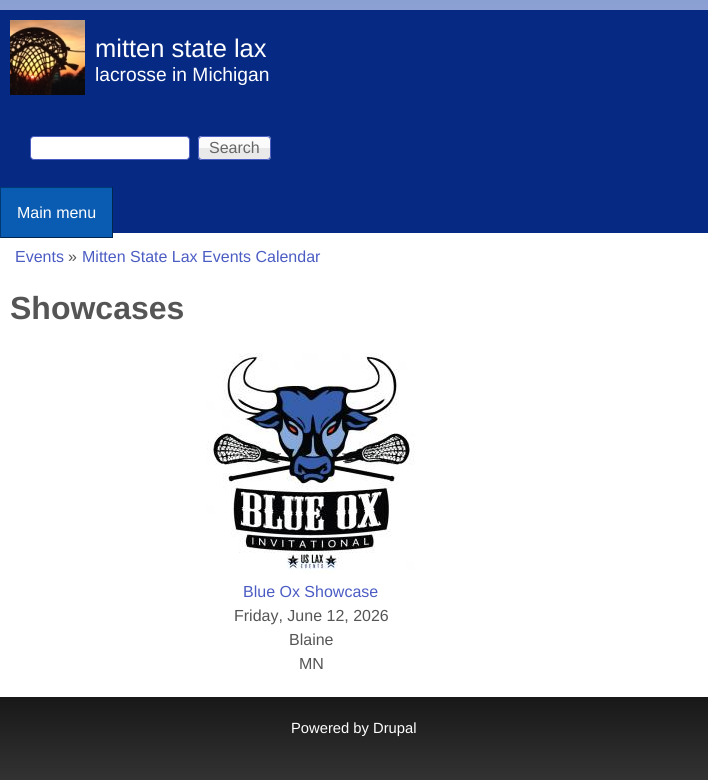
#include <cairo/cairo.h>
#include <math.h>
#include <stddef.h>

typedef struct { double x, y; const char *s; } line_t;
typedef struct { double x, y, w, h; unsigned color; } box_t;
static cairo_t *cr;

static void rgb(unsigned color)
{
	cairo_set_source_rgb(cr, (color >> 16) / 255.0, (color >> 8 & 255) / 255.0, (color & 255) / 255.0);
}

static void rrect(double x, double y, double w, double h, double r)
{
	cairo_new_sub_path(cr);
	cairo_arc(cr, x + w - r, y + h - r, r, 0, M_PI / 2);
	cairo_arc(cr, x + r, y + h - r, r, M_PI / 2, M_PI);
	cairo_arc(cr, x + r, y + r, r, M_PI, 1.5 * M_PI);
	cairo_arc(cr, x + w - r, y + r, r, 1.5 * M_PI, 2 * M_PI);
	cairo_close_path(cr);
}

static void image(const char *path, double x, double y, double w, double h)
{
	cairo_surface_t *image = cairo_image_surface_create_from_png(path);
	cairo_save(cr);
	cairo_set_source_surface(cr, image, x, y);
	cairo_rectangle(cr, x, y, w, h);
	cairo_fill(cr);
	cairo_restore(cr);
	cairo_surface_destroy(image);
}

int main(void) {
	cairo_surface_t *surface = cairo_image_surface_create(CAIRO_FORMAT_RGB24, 708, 780);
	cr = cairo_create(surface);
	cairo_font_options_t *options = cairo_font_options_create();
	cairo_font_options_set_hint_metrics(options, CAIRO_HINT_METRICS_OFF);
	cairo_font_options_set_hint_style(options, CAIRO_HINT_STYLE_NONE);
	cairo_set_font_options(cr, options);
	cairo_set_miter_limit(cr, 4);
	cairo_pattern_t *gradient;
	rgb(0xffffff);
	cairo_paint(cr);
	image("img/1.png", 0, 0, 708, 10);
	rgb(0x062984);
	cairo_rectangle(cr, 0, 10, 708, 183);
	cairo_fill(cr);
	image("img/2.png", 10, 20, 75, 75);
	rgb(0xffffff);
	rrect(30.5, 136.5, 159, 23, 3.5);
	cairo_fill_preserve(cr);
	rgb(0x4b5cc3);
	cairo_set_line_width(cr, 1);
	cairo_stroke(cr);
	image("img/3.png", 198, 136, 73, 24);
	rrect(198.5, 136.5, 72, 23, 3.5);
	cairo_stroke(cr);
	{
		static const box_t items[] = {
			{113, 193, 595, 40, 0x062984},
			{1, 188, 111, 49, 0x095cb1},
			{0, 187, 113, 1, 0x003973},
			{112, 187, 1, 51, 0x00264d},
			{0, 237, 113, 1, 0x00264d},
			{0, 187, 1, 51, 0x003973},
		};
		for (size_t i = 0; i < sizeof items / sizeof *items; i++) {
			rgb(items[i].color);
			cairo_rectangle(cr, items[i].x, items[i].y, items[i].w, items[i].h);
			cairo_fill(cr);
		}
	}
	image("img/4.png", 207, 353, 208, 220);
	gradient = cairo_pattern_create_linear(0, 697, 0, 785);
	cairo_pattern_add_color_stop_rgba(gradient, 0, 0.094, 0.094, 0.094, 1);
	cairo_pattern_add_color_stop_rgba(gradient, 1, 0.204, 0.204, 0.204, 1);
	cairo_set_source(cr, gradient);
	cairo_pattern_destroy(gradient);
	cairo_rectangle(cr, 0, 697, 708, 83);
	cairo_fill(cr);
	cairo_select_font_face(cr, "Liberation Sans", CAIRO_FONT_SLANT_NORMAL, CAIRO_FONT_WEIGHT_NORMAL);
	cairo_set_font_size(cr, 25.5);
	rgb(0xfefefe);
	cairo_move_to(cr, 95, 57);
	cairo_show_text(cr, "mitten state lax");
	cairo_set_font_size(cr, 19.25);
	cairo_move_to(cr, 95, 81);
	cairo_show_text(cr, "lacrosse in Michigan");
	cairo_set_font_size(cr, 16);
	rgb(0x666666);
	cairo_move_to(cr, 209, 153);
	cairo_show_text(cr, "Search");
	rgb(0xfefefe);
	cairo_move_to(cr, 17, 218);
	cairo_show_text(cr, "Main menu");
	rgb(0x4b5cc3);
	cairo_move_to(cr, 15, 262);
	cairo_show_text(cr, "Events");
	rgb(0x555555);
	cairo_move_to(cr, 68, 262);
	cairo_show_text(cr, "»");
	rgb(0x4b5cc3);
	cairo_move_to(cr, 82, 262);
	cairo_show_text(cr, "Mitten State Lax Events Calendar");
	cairo_select_font_face(cr, "Liberation Sans", CAIRO_FONT_SLANT_NORMAL, CAIRO_FONT_WEIGHT_BOLD);
	cairo_set_font_size(cr, 32);
	rgb(0x555555);
	cairo_move_to(cr, 10, 319);
	cairo_show_text(cr, "Showcases");
	cairo_select_font_face(cr, "Liberation Sans", CAIRO_FONT_SLANT_NORMAL, CAIRO_FONT_WEIGHT_NORMAL);
	cairo_set_font_size(cr, 16);
	rgb(0x4b5cc3);
	cairo_move_to(cr, 243, 597);
	cairo_show_text(cr, "Blue Ox Showcase");
	rgb(0x555555);
	{
		static const line_t items[] = {
			{234, 621, "Friday, June 12, 2026"},
			{289, 645, "Blaine"},
			{299, 669, "MN"},
		};
		for (size_t i = 0; i < sizeof items / sizeof *items; i++) {
			cairo_move_to(cr, items[i].x, items[i].y);
			cairo_show_text(cr, items[i].s);
		}
	}
	cairo_set_font_size(cr, 14.75);
	rgb(0xfefefe);
	cairo_move_to(cr, 291, 733);
	cairo_show_text(cr, "Powered by Drupal");
	cairo_surface_write_to_png(surface, "page.png");
	cairo_font_options_destroy(options);
	cairo_destroy(cr);
	cairo_surface_destroy(surface);
	return 0;
}
